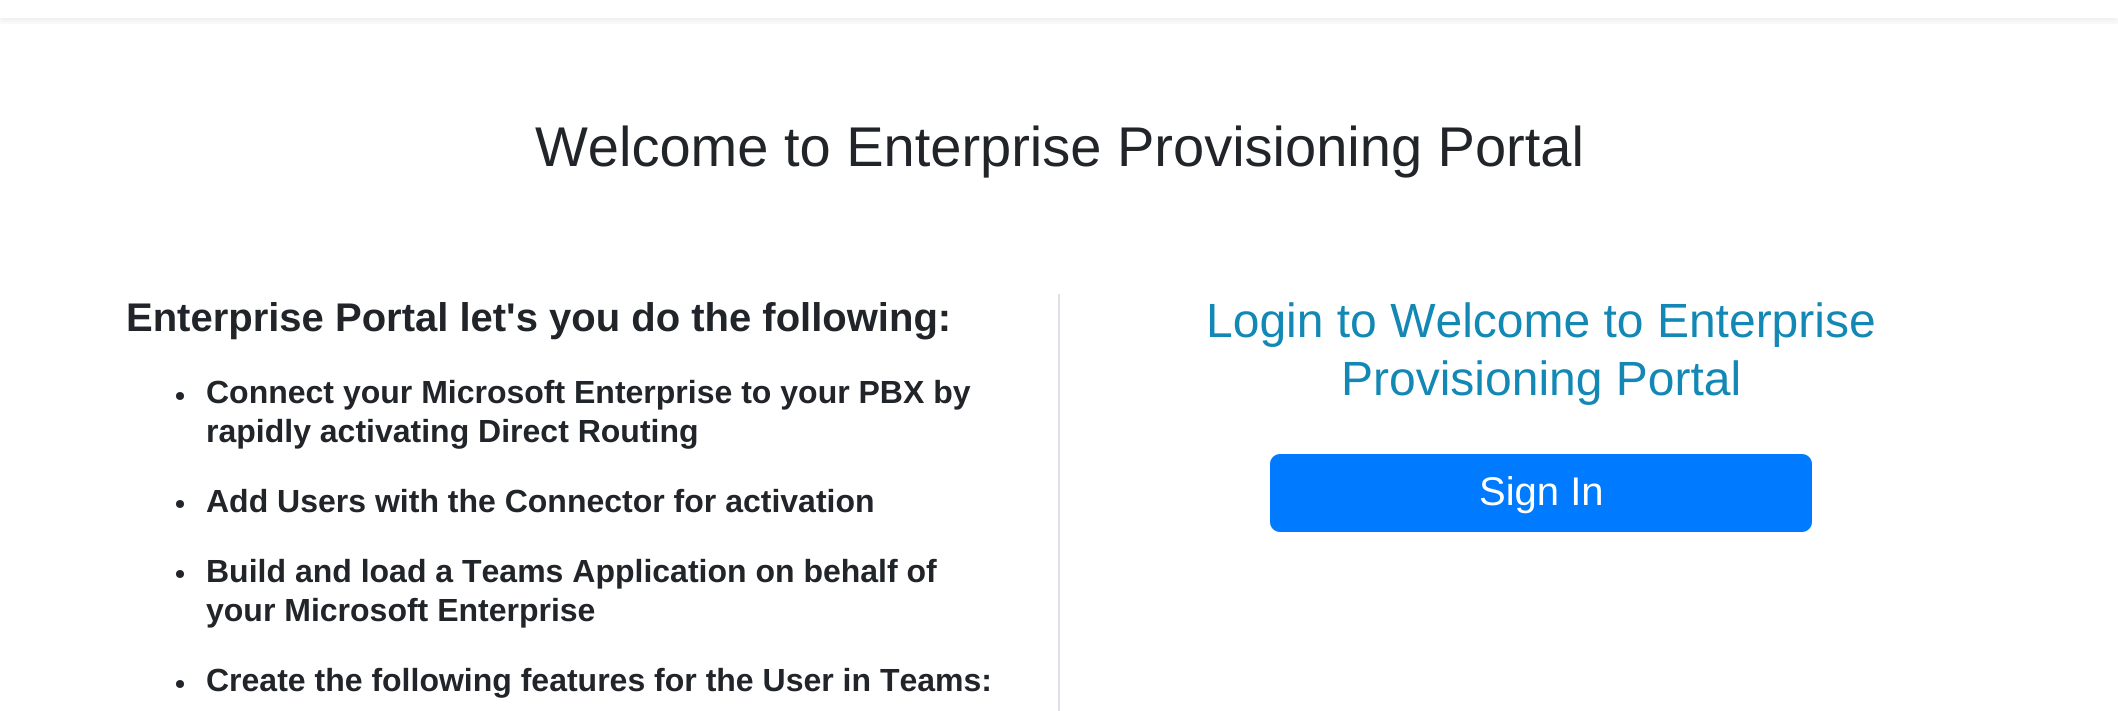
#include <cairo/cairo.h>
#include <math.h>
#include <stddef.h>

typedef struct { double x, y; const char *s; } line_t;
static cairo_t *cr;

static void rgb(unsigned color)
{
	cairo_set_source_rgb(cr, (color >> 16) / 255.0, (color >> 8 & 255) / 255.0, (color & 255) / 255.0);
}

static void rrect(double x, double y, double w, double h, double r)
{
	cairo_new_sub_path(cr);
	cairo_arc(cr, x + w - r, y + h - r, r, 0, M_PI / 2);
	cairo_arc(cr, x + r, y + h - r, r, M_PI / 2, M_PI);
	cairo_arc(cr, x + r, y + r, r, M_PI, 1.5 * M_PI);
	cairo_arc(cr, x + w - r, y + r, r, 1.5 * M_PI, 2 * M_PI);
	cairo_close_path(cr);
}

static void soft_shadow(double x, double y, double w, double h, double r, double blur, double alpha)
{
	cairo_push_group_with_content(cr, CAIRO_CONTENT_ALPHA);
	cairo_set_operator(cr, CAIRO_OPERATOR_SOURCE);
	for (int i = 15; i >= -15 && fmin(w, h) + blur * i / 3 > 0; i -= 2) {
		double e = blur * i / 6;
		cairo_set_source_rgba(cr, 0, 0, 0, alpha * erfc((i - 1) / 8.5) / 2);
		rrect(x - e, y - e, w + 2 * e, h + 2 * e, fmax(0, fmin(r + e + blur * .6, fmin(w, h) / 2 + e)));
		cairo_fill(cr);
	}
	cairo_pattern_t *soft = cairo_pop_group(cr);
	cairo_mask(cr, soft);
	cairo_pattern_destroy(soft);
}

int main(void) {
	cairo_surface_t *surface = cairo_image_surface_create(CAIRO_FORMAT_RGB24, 2118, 711);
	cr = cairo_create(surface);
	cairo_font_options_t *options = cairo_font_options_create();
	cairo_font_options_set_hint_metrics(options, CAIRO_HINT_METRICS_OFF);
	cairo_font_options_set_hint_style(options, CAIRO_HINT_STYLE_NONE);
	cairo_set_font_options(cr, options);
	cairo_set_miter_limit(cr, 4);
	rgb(0xffffff);
	cairo_paint(cr);
	cairo_save(cr);
	cairo_rectangle(cr, 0, 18, 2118, 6);
	cairo_clip(cr);
	rgb(0x000000);
	soft_shadow(0, -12, 2118, 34, 0, 4, 0.07);
	cairo_restore(cr);
	rgb(0xdee2e6);
	cairo_rectangle(cr, 1058, 294, 2, 417);
	cairo_fill(cr);
	rgb(0x212529);
	cairo_arc(cr, 180, 396, 4, 0, 2 * M_PI);
	cairo_fill(cr);
	cairo_arc(cr, 180, 504, 4, 0, 2 * M_PI);
	cairo_fill(cr);
	cairo_arc(cr, 180, 574, 4, 0, 2 * M_PI);
	cairo_fill(cr);
	cairo_arc(cr, 180, 684, 4, 0, 2 * M_PI);
	cairo_fill(cr);
	rgb(0x007bff);
	rrect(1271, 455, 540, 76, 9);
	cairo_fill_preserve(cr);
	cairo_stroke(cr);
	cairo_select_font_face(cr, "Liberation Sans", CAIRO_FONT_SLANT_NORMAL, CAIRO_FONT_WEIGHT_NORMAL);
	cairo_set_font_size(cr, 56);
	rgb(0x212529);
	cairo_move_to(cr, 535, 166);
	cairo_show_text(cr, "Welcome to Enterprise Provisioning Portal");
	cairo_select_font_face(cr, "Liberation Sans", CAIRO_FONT_SLANT_NORMAL, CAIRO_FONT_WEIGHT_BOLD);
	cairo_set_font_size(cr, 40);
	cairo_move_to(cr, 126, 331);
	cairo_show_text(cr, "Enterprise Portal let's you do the following:");
	cairo_set_font_size(cr, 32);
	{
		static const line_t items[] = {
			{206, 403, "Connect your Microsoft Enterprise to your PBX by"},
			{206, 442, "rapidly activating Direct Routing"},
			{206, 512, "Add Users with the Connector for activation"},
			{206, 582, "Build and load a Teams Application on behalf of"},
			{206, 621, "your Microsoft Enterprise"},
			{206, 691, "Create the following features for the User in Teams:"},
		};
		for (size_t i = 0; i < sizeof items / sizeof *items; i++) {
			cairo_move_to(cr, items[i].x, items[i].y);
			cairo_show_text(cr, items[i].s);
		}
	}
	cairo_select_font_face(cr, "Liberation Sans", CAIRO_FONT_SLANT_NORMAL, CAIRO_FONT_WEIGHT_NORMAL);
	cairo_set_font_size(cr, 48);
	rgb(0x1388b5);
	cairo_move_to(cr, 1206, 337);
	cairo_show_text(cr, "Login to Welcome to Enterprise");
	cairo_move_to(cr, 1341, 395);
	cairo_show_text(cr, "Provisioning Portal");
	cairo_set_font_size(cr, 40);
	rgb(0xffffff);
	cairo_move_to(cr, 1479, 505);
	cairo_show_text(cr, "Sign In");
	cairo_surface_write_to_png(surface, "page.png");
	cairo_font_options_destroy(options);
	cairo_destroy(cr);
	cairo_surface_destroy(surface);
	return 0;
}
